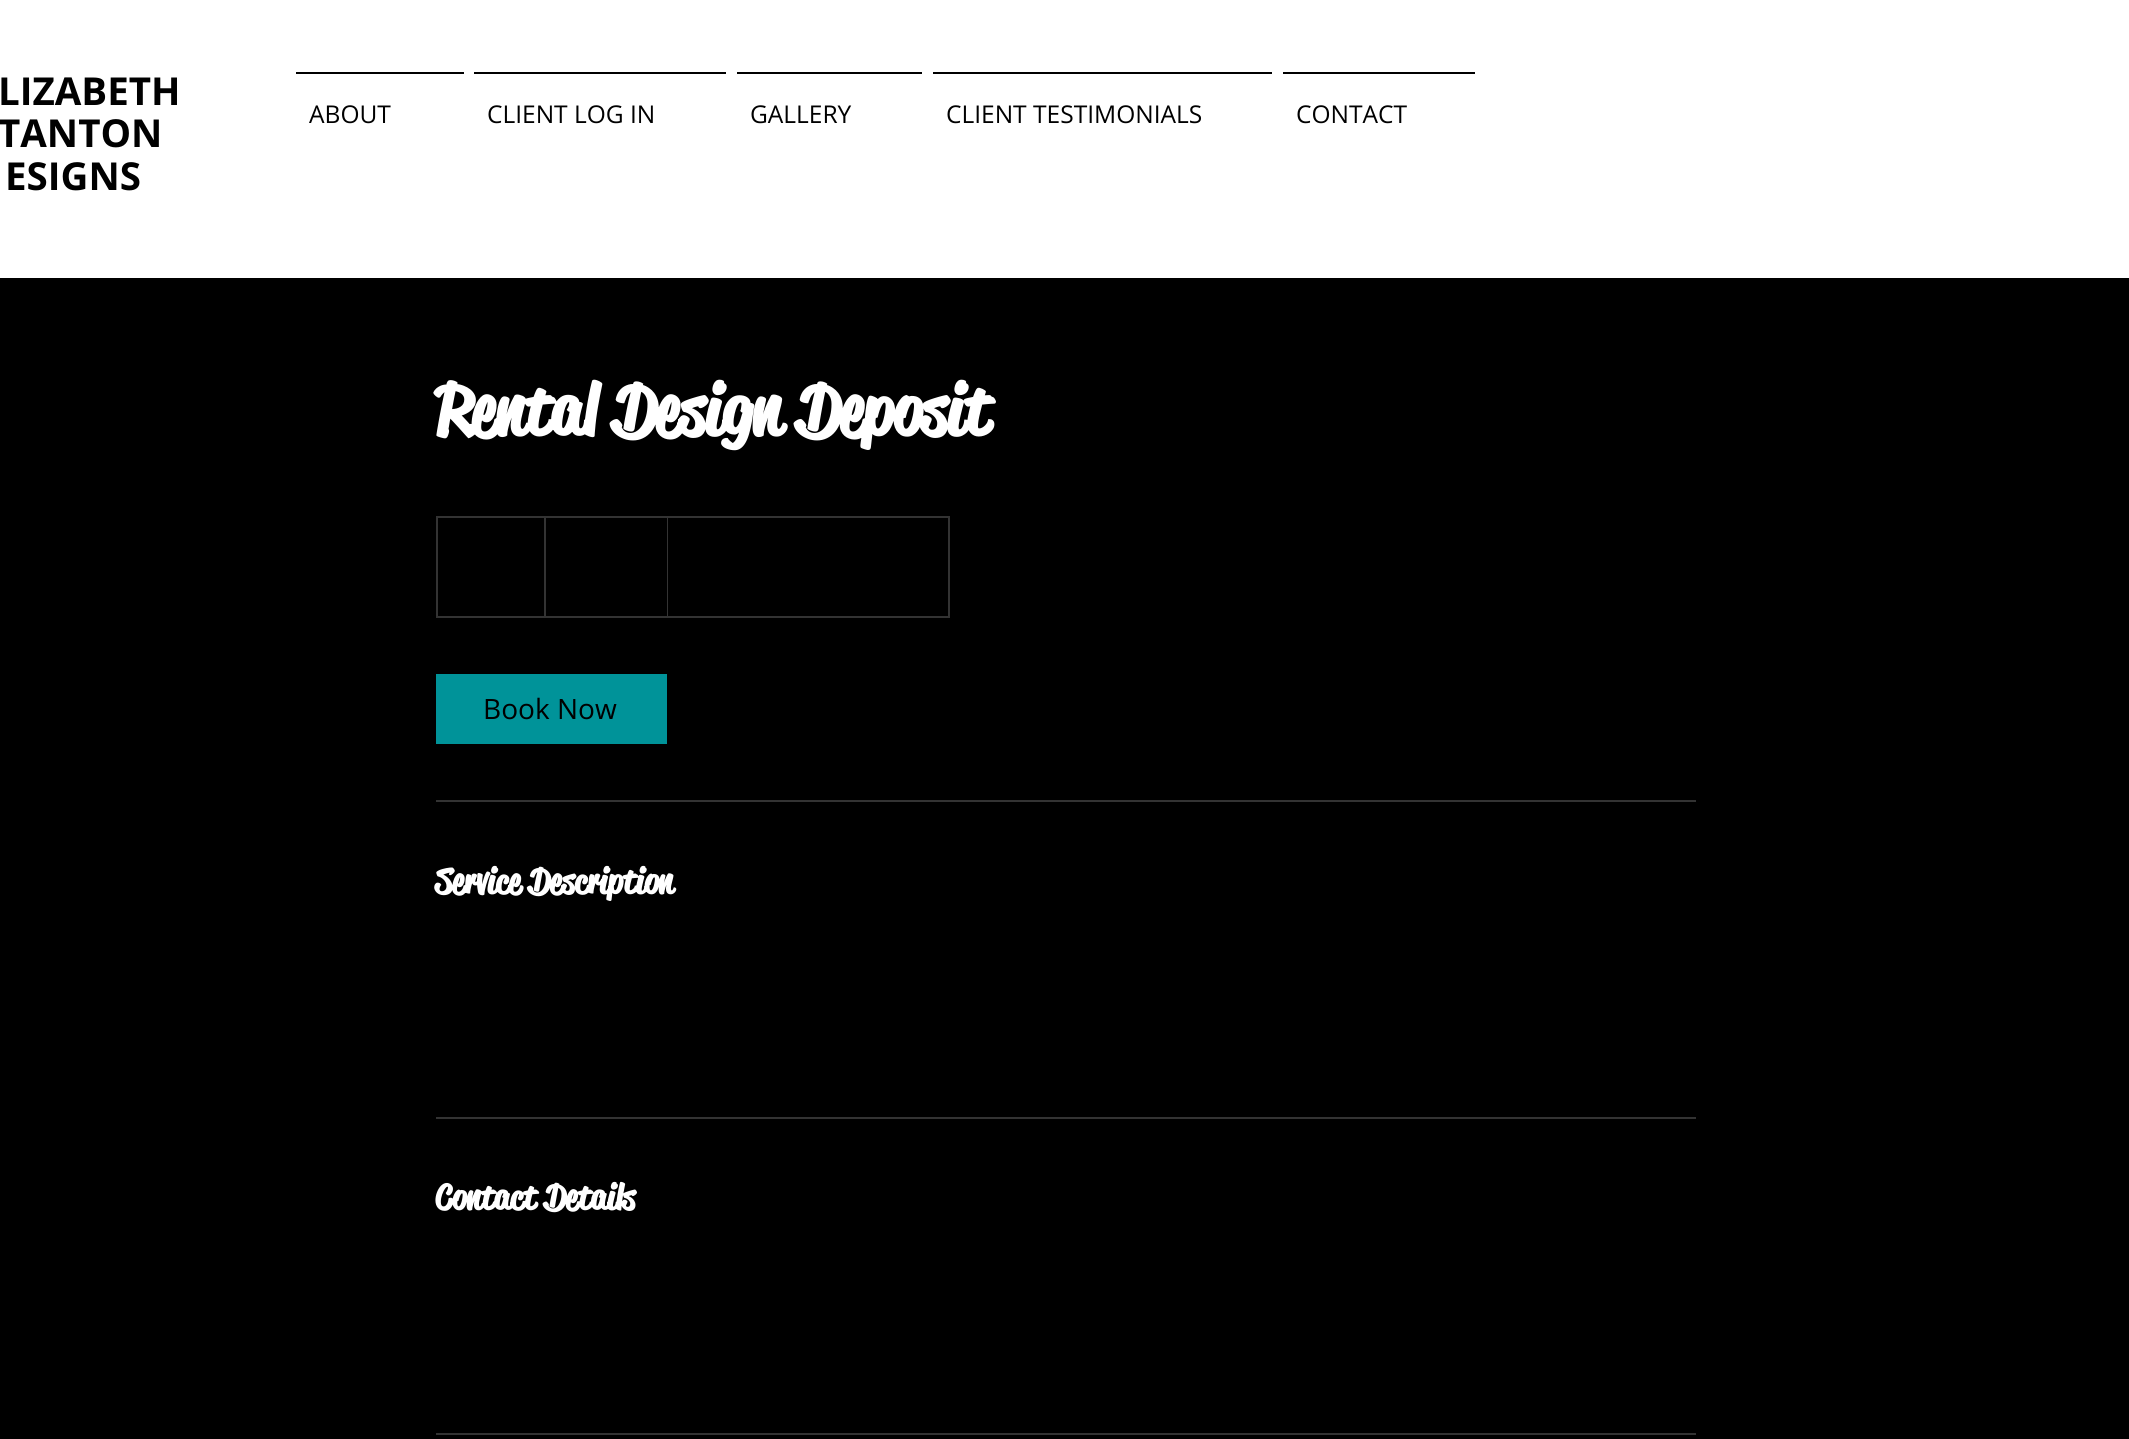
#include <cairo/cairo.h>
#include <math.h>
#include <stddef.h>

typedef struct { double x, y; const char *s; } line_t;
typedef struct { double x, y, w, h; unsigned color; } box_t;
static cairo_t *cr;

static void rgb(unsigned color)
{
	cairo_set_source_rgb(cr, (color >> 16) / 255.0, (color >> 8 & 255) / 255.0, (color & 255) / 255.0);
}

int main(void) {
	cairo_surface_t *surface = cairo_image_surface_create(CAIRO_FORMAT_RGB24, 2129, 1439);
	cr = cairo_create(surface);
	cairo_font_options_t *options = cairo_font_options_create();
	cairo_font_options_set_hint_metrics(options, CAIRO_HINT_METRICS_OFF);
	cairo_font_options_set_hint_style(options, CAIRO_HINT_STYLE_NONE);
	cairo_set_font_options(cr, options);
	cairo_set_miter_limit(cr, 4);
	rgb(0xffffff);
	cairo_paint(cr);
	{
		static const box_t items[] = {
			{296, 72, 168, 2, 0x000000},
			{474, 72, 252, 2, 0x000000},
			{737, 72, 185, 2, 0x000000},
			{933, 72, 339, 2, 0x000000},
			{1283, 72, 192, 2, 0x000000},
			{0, 278, 2129, 1161, 0x000000},
		};
		for (size_t i = 0; i < sizeof items / sizeof *items; i++) {
			rgb(items[i].color);
			cairo_rectangle(cr, items[i].x, items[i].y, items[i].w, items[i].h);
			cairo_fill(cr);
		}
	}
	cairo_rectangle(cr, 437, 517, 512, 100);
	rgb(0x333333);
	cairo_stroke(cr);
	cairo_save(cr);
	cairo_rectangle(cr, 438, 518, 511, 98);
	cairo_clip(cr);
	cairo_new_path(cr);
	cairo_move_to(cr, 544, 616);
	cairo_line_to(cr, 544, 516);
	cairo_line_to(cr, 546, 518);
	cairo_line_to(cr, 546, 616);
	cairo_close_path(cr);
	cairo_fill(cr);
	cairo_restore(cr);
	cairo_new_path(cr);
	cairo_move_to(cr, 667, 616);
	cairo_line_to(cr, 667, 516);
	cairo_line_to(cr, 668, 518);
	cairo_line_to(cr, 668, 616);
	cairo_close_path(cr);
	cairo_fill(cr);
	{
		static const box_t items[] = {
			{436, 674, 231, 70, 0x009399},
			{436, 800, 1260, 2, 0x333333},
			{436, 1117, 1260, 2, 0x333333},
			{436, 1433, 1260, 2, 0x333333},
		};
		for (size_t i = 0; i < sizeof items / sizeof *items; i++) {
			rgb(items[i].color);
			cairo_rectangle(cr, items[i].x, items[i].y, items[i].w, items[i].h);
			cairo_fill(cr);
		}
	}
	cairo_select_font_face(cr, "Open Sans", CAIRO_FONT_SLANT_NORMAL, CAIRO_FONT_WEIGHT_BOLD);
	cairo_set_font_size(cr, 38.5);
	rgb(0x000000);
	{
		static const line_t items[] = {
			{-2, 105, "LIZABETH"},
			{-2, 147, "TANTON"},
			{5, 190, "ESIGNS"},
		};
		for (size_t i = 0; i < sizeof items / sizeof *items; i++) {
			cairo_move_to(cr, items[i].x, items[i].y);
			cairo_show_text(cr, items[i].s);
		}
	}
	cairo_select_font_face(cr, "Open Sans", CAIRO_FONT_SLANT_NORMAL, CAIRO_FONT_WEIGHT_NORMAL);
	cairo_set_font_size(cr, 24.5);
	{
		static const line_t items[] = {
			{309, 123, "ABOUT"},
			{487, 123, "CLIENT LOG IN"},
			{750, 123, "GALLERY"},
			{946, 123, "CLIENT TESTIMONIALS"},
			{1296, 123, "CONTACT"},
		};
		for (size_t i = 0; i < sizeof items / sizeof *items; i++) {
			cairo_move_to(cr, items[i].x, items[i].y);
			cairo_show_text(cr, items[i].s);
		}
	}
	cairo_select_font_face(cr, "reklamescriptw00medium", CAIRO_FONT_SLANT_NORMAL, CAIRO_FONT_WEIGHT_BOLD);
	cairo_set_font_size(cr, 70);
	rgb(0xffffff);
	cairo_move_to(cr, 435, 434);
	cairo_show_text(cr, "Rental Design Deposit");
	cairo_select_font_face(cr, "Open Sans", CAIRO_FONT_SLANT_NORMAL, CAIRO_FONT_WEIGHT_NORMAL);
	cairo_set_font_size(cr, 28);
	rgb(0x000000);
	cairo_move_to(cr, 483, 719);
	cairo_show_text(cr, "Book Now");
	cairo_select_font_face(cr, "reklamescriptw00medium", CAIRO_FONT_SLANT_NORMAL, CAIRO_FONT_WEIGHT_BOLD);
	cairo_set_font_size(cr, 35);
	rgb(0xffffff);
	cairo_move_to(cr, 435, 893);
	cairo_show_text(cr, "Service Description");
	cairo_move_to(cr, 435, 1209);
	cairo_show_text(cr, "Contact Details");
	cairo_surface_write_to_png(surface, "page.png");
	cairo_font_options_destroy(options);
	cairo_destroy(cr);
	cairo_surface_destroy(surface);
	return 0;
}
